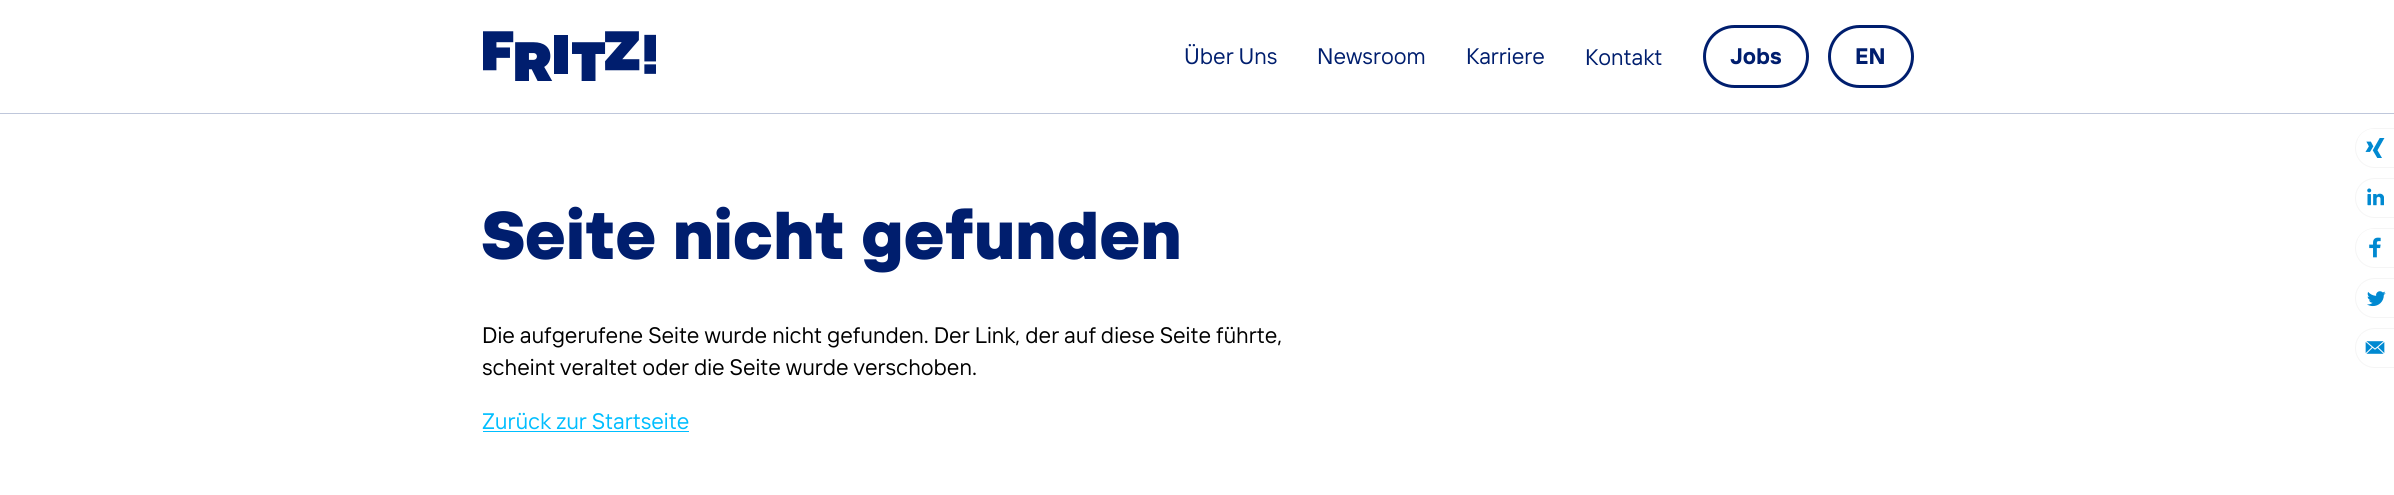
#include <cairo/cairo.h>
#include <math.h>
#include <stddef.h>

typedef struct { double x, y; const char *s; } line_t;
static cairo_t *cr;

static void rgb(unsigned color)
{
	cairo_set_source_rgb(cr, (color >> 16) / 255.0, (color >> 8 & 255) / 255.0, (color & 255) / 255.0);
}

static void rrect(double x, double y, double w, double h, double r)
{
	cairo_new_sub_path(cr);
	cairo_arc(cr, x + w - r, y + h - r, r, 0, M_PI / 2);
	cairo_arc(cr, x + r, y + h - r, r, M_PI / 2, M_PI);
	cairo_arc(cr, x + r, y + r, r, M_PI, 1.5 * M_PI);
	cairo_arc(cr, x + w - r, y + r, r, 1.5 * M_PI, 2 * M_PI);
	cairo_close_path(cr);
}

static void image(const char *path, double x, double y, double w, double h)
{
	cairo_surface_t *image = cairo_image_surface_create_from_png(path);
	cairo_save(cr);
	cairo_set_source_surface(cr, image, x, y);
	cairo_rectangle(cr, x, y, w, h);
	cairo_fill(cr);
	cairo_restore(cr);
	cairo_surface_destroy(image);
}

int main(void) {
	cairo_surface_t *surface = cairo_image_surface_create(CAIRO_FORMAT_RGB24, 2394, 495);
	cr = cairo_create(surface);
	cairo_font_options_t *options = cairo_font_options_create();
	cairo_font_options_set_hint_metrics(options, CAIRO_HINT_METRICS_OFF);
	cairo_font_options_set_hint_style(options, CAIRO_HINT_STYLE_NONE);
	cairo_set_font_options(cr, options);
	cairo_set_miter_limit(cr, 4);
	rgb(0xffffff);
	cairo_paint(cr);
	rgb(0xbfc7db);
	cairo_rectangle(cr, 0, 113, 2394, 1);
	cairo_fill(cr);
	image("img/1.png", 483, 31, 173, 50);
	rrect(1704.5, 26.5, 103, 60, 30);
	rgb(0x001e6e);
	cairo_set_line_width(cr, 3);
	cairo_stroke(cr);
	rrect(1829.5, 26.5, 83, 60, 30);
	cairo_stroke(cr);
	rgb(0x00beff);
	cairo_rectangle(cr, 483, 431, 206, 1);
	cairo_fill(cr);
	cairo_new_path(cr);
	cairo_move_to(cr, 2375, 128.5);
	cairo_line_to(cr, 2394.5, 128.5);
	cairo_line_to(cr, 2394.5, 167.5);
	cairo_line_to(cr, 2375, 167.5);
	cairo_curve_to(cr, 2364, 167.5, 2355.5, 159, 2355.5, 148);
	cairo_curve_to(cr, 2355.5, 137, 2364, 128.5, 2375, 128.5);
	cairo_close_path(cr);
	rgb(0xf5f5f5);
	cairo_set_line_width(cr, 1);
	cairo_stroke(cr);
	image("img/2.png", 2358, 129, 27, 29);
	cairo_new_path(cr);
	cairo_move_to(cr, 2375, 178.5);
	cairo_line_to(cr, 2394.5, 178.5);
	cairo_line_to(cr, 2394.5, 217.5);
	cairo_line_to(cr, 2375, 217.5);
	cairo_curve_to(cr, 2364, 217.5, 2355.5, 209, 2355.5, 198);
	cairo_curve_to(cr, 2355.5, 187, 2364, 178.5, 2375, 178.5);
	cairo_close_path(cr);
	cairo_stroke(cr);
	image("img/3.png", 2367, 188, 17, 18);
	cairo_new_path(cr);
	cairo_move_to(cr, 2375, 228.5);
	cairo_line_to(cr, 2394.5, 228.5);
	cairo_line_to(cr, 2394.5, 267.5);
	cairo_line_to(cr, 2375, 267.5);
	cairo_curve_to(cr, 2364, 267.5, 2355.5, 259, 2355.5, 248);
	cairo_curve_to(cr, 2355.5, 237, 2364, 228.5, 2375, 228.5);
	cairo_close_path(cr);
	cairo_stroke(cr);
	image("img/4.png", 2358, 229, 23, 29);
	cairo_new_path(cr);
	cairo_move_to(cr, 2375, 278.5);
	cairo_line_to(cr, 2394.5, 278.5);
	cairo_line_to(cr, 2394.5, 317.5);
	cairo_line_to(cr, 2375, 317.5);
	cairo_curve_to(cr, 2364, 317.5, 2355.5, 309, 2355.5, 298);
	cairo_curve_to(cr, 2355.5, 287, 2364, 278.5, 2375, 278.5);
	cairo_close_path(cr);
	cairo_stroke(cr);
	image("img/5.png", 2361, 284, 25, 23);
	cairo_new_path(cr);
	cairo_move_to(cr, 2375, 328.5);
	cairo_line_to(cr, 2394.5, 328.5);
	cairo_line_to(cr, 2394.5, 367.5);
	cairo_line_to(cr, 2375, 367.5);
	cairo_curve_to(cr, 2364, 367.5, 2355.5, 359, 2355.5, 348);
	cairo_curve_to(cr, 2355.5, 337, 2364, 328.5, 2375, 328.5);
	cairo_close_path(cr);
	cairo_stroke(cr);
	image("img/6.png", 2361, 334, 24, 20);
	cairo_select_font_face(cr, "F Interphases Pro", CAIRO_FONT_SLANT_NORMAL, CAIRO_FONT_WEIGHT_NORMAL);
	cairo_set_font_size(cr, 22.5);
	rgb(0x001e6e);
	{
		static const line_t items[] = {
			{1184, 64, "Über Uns"},
			{1317, 64, "Newsroom"},
			{1466, 64, "Karriere"},
			{1585, 65, "Kontakt"},
		};
		for (size_t i = 0; i < sizeof items / sizeof *items; i++) {
			cairo_move_to(cr, items[i].x, items[i].y);
			cairo_show_text(cr, items[i].s);
		}
	}
	cairo_select_font_face(cr, "F Interphases Pro", CAIRO_FONT_SLANT_NORMAL, CAIRO_FONT_WEIGHT_BOLD);
	cairo_move_to(cr, 1730, 64);
	cairo_show_text(cr, "Jobs");
	cairo_move_to(cr, 1855, 64);
	cairo_show_text(cr, "EN");
	cairo_select_font_face(cr, "F Interphases Pro Black", CAIRO_FONT_SLANT_NORMAL, CAIRO_FONT_WEIGHT_NORMAL);
	cairo_set_font_size(cr, 67.5);
	cairo_move_to(cr, 482, 259);
	cairo_show_text(cr, "Seite nicht gefunden");
	cairo_select_font_face(cr, "F Interphases Pro", CAIRO_FONT_SLANT_NORMAL, CAIRO_FONT_WEIGHT_NORMAL);
	cairo_set_font_size(cr, 22.5);
	rgb(0x000000);
	cairo_move_to(cr, 482, 343);
	cairo_show_text(cr, "Die aufgerufene Seite wurde nicht gefunden. Der Link, der auf diese Seite führte,");
	cairo_move_to(cr, 482, 375);
	cairo_show_text(cr, "scheint veraltet oder die Seite wurde verschoben.");
	rgb(0x00beff);
	cairo_move_to(cr, 482, 429);
	cairo_show_text(cr, "Zurück zur Startseite");
	cairo_surface_write_to_png(surface, "page.png");
	cairo_font_options_destroy(options);
	cairo_destroy(cr);
	cairo_surface_destroy(surface);
	return 0;
}
